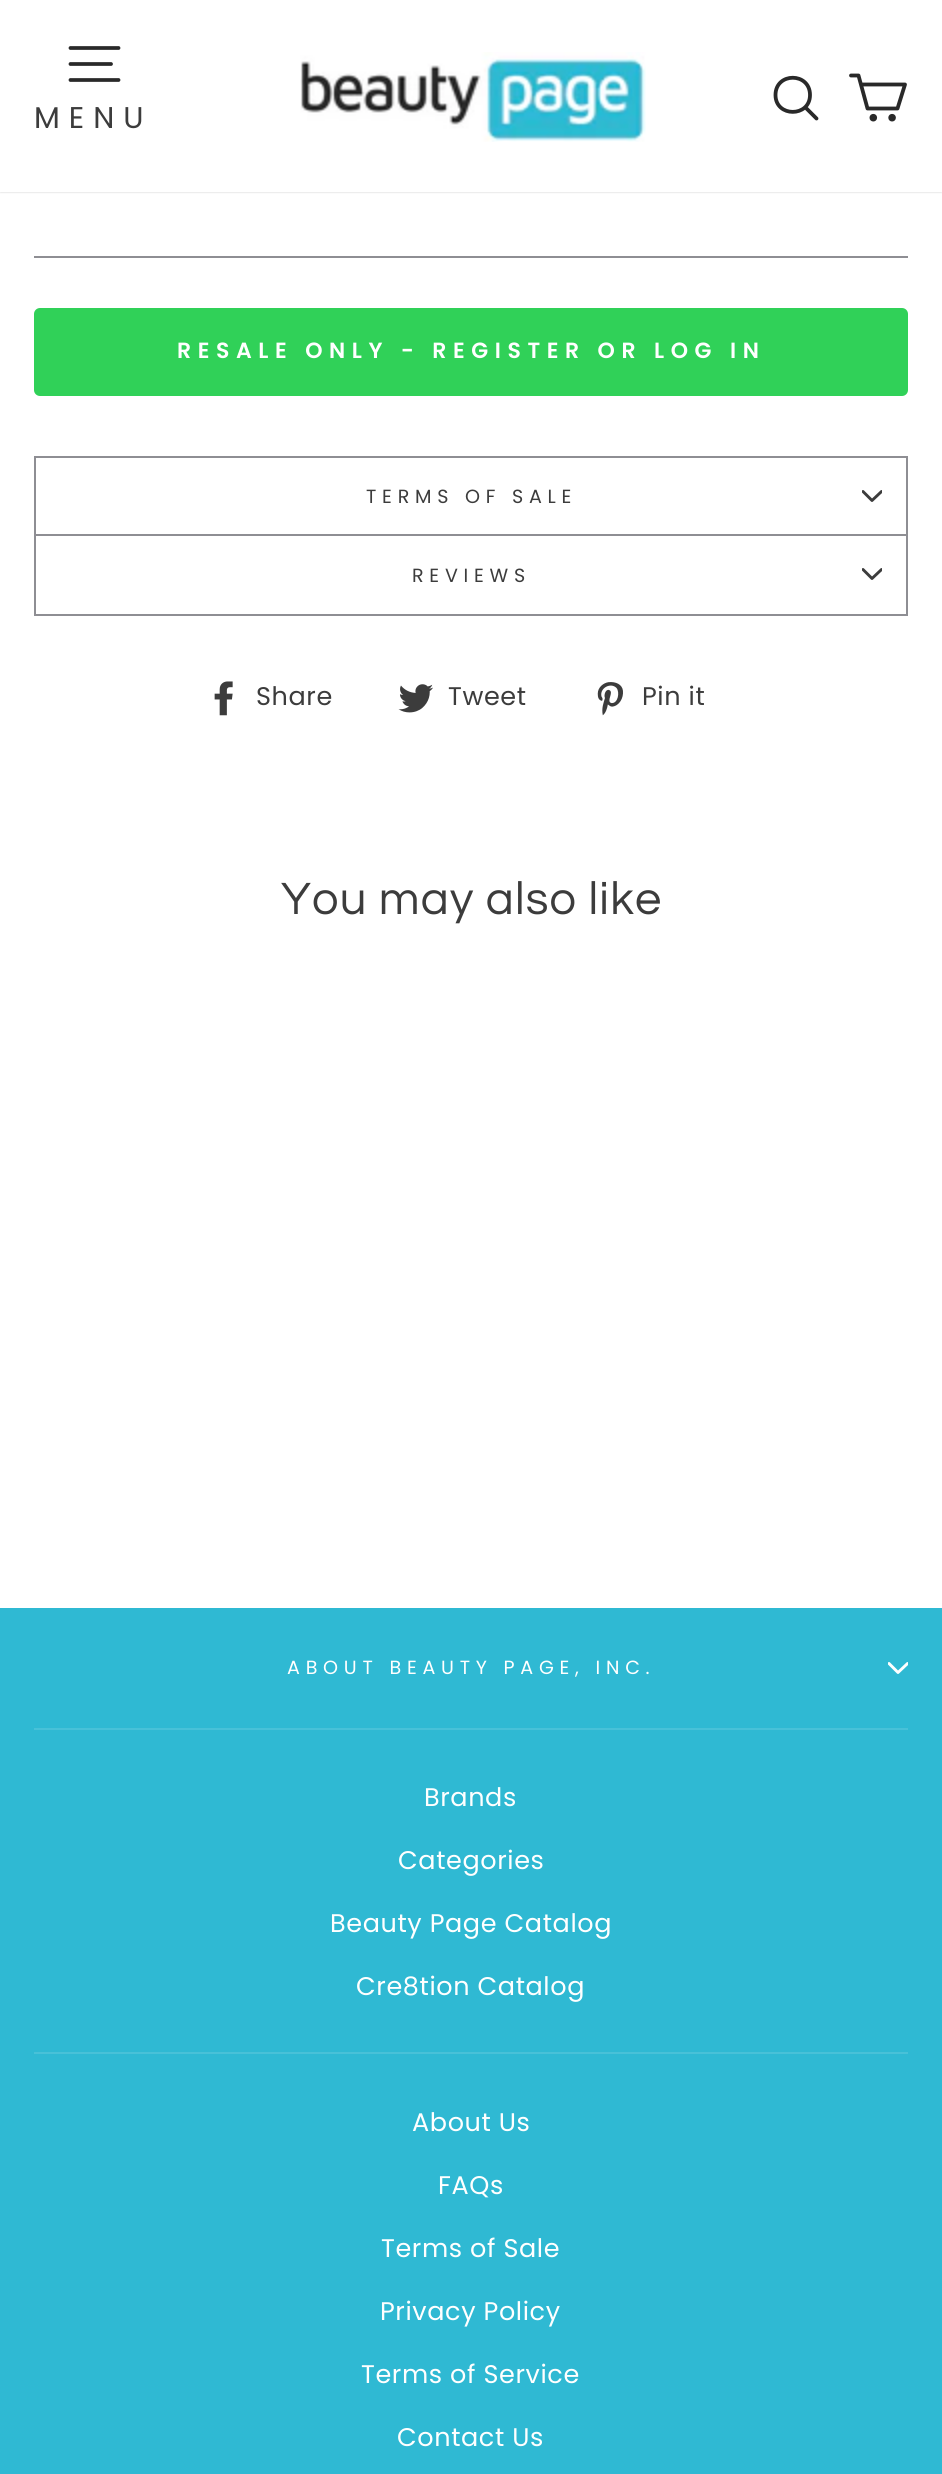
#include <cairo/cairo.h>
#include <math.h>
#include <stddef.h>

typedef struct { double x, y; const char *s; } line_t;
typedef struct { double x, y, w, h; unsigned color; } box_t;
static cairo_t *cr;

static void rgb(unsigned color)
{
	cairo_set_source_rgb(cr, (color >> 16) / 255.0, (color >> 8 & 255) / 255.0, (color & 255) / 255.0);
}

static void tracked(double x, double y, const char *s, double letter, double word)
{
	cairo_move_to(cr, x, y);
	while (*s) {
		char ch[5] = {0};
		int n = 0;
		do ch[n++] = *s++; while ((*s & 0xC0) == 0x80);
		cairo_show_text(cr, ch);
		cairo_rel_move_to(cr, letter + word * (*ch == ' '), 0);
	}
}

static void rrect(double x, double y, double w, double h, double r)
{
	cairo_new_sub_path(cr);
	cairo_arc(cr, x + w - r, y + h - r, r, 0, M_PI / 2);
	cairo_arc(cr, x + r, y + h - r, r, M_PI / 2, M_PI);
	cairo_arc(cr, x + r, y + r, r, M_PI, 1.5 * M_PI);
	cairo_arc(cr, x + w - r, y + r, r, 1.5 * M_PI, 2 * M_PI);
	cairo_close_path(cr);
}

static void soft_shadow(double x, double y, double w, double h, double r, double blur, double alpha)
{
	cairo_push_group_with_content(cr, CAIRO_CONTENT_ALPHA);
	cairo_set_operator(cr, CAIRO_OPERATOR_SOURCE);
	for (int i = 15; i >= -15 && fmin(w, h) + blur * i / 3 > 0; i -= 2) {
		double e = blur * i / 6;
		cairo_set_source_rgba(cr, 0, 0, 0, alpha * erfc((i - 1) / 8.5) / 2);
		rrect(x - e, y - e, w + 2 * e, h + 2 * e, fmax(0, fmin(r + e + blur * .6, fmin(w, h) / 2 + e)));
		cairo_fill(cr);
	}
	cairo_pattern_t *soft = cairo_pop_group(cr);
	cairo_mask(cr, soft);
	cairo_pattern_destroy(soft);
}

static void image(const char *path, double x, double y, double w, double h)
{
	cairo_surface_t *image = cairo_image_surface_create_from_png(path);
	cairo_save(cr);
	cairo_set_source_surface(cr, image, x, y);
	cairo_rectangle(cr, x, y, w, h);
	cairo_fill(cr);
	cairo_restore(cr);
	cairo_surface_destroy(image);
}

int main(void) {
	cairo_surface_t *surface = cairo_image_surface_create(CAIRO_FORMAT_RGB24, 942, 2474);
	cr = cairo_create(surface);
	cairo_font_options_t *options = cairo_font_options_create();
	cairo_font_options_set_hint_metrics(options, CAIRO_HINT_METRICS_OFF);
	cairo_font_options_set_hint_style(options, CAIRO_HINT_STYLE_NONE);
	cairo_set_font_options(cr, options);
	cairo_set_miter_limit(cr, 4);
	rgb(0xffffff);
	cairo_paint(cr);
	rgb(0x000000);
	soft_shadow(0, 0, 942, 192, 0, 1, 0.2);
	rgb(0xffffff);
	cairo_rectangle(cr, 0, 0, 942, 192);
	cairo_fill(cr);
	cairo_new_path(cr);
	cairo_move_to(cr, 70.5, 48);
	cairo_line_to(cr, 118.5, 48);
	cairo_move_to(cr, 70.5, 64);
	cairo_line_to(cr, 111, 64);
	cairo_move_to(cr, 70.5, 80);
	cairo_line_to(cr, 118.5, 80);
	rgb(0x292929);
	cairo_set_line_width(cr, 3.8);
	cairo_set_line_cap(cr, CAIRO_LINE_CAP_ROUND);
	cairo_set_line_join(cr, CAIRO_LINE_JOIN_ROUND);
	cairo_stroke(cr);
	image("img/1.png", 300, 52, 346, 90);
	cairo_new_path(cr);
	cairo_move_to(cr, 810, 95);
	cairo_curve_to(cr, 810, 117.5, 775.5, 117.5, 775.5, 95);
	cairo_curve_to(cr, 775.5, 72, 810, 72, 810, 95);
	cairo_close_path(cr);
	cairo_move_to(cr, 816.5, 118.5);
	cairo_line_to(cr, 805.5, 107.5);
	cairo_stroke(cr);
	cairo_new_path(cr);
	cairo_move_to(cr, 861, 84.5);
	cairo_line_to(cr, 905, 84.5);
	cairo_line_to(cr, 897.5, 108.5);
	cairo_line_to(cr, 867.5, 108.5);
	cairo_line_to(cr, 858.5, 75.5);
	cairo_line_to(cr, 851, 75.5);
	cairo_stroke(cr);
	cairo_arc(cr, 873.3, 117.7, 1.9, 0, 2 * M_PI);
	cairo_set_line_cap(cr, CAIRO_LINE_CAP_BUTT);
	cairo_set_line_join(cr, CAIRO_LINE_JOIN_MITER);
	cairo_stroke(cr);
	cairo_arc(cr, 892.1, 117.7, 1.9, 0, 2 * M_PI);
	cairo_stroke(cr);
	rgb(0x8e8e93);
	cairo_rectangle(cr, 34, 256, 874, 2);
	cairo_fill(cr);
	rgb(0x30d158);
	rrect(34, 308, 874, 88, 6);
	cairo_fill(cr);
	{
		static const box_t items[] = {
			{34, 614, 874, 2, 0x8e8e93},
			{34, 456, 874, 2, 0x8e8e93},
			{906, 456, 2, 80, 0x8e8e93},
			{34, 456, 2, 80, 0x8e8e93},
		};
		for (size_t i = 0; i < sizeof items / sizeof *items; i++) {
			rgb(items[i].color);
			cairo_rectangle(cr, items[i].x, items[i].y, items[i].w, items[i].h);
			cairo_fill(cr);
		}
	}
	cairo_save(cr);
	cairo_rectangle(cr, 862, 486, 20, 20);
	cairo_clip(cr);
	cairo_new_path(cr);
	cairo_move_to(cr, 863, 491.5);
	cairo_line_to(cr, 872, 500.5);
	cairo_line_to(cr, 881.5, 491.5);
	rgb(0x3c3c3c);
	cairo_set_line_width(cr, 2.9);
	cairo_set_line_cap(cr, CAIRO_LINE_CAP_ROUND);
	cairo_set_line_join(cr, CAIRO_LINE_JOIN_ROUND);
	cairo_stroke(cr);
	cairo_restore(cr);
	{
		static const box_t items[] = {
			{34, 534, 874, 2, 0x8e8e93},
			{906, 534, 2, 80, 0x8e8e93},
			{34, 534, 2, 80, 0x8e8e93},
		};
		for (size_t i = 0; i < sizeof items / sizeof *items; i++) {
			rgb(items[i].color);
			cairo_rectangle(cr, items[i].x, items[i].y, items[i].w, items[i].h);
			cairo_fill(cr);
		}
	}
	cairo_save(cr);
	cairo_rectangle(cr, 862, 564, 20, 20);
	cairo_clip(cr);
	cairo_new_path(cr);
	cairo_move_to(cr, 863, 569.5);
	cairo_line_to(cr, 872, 578.5);
	cairo_line_to(cr, 881.5, 569.5);
	rgb(0x3c3c3c);
	cairo_set_line_width(cr, 2.9);
	cairo_set_line_cap(cr, CAIRO_LINE_CAP_ROUND);
	cairo_set_line_join(cr, CAIRO_LINE_JOIN_ROUND);
	cairo_stroke(cr);
	cairo_restore(cr);
	image("img/2.png", 214, 681, 19, 35);
	image("img/3.png", 398, 684, 35, 29);
	image("img/4.png", 597, 682, 26, 34);
	rgb(0x2fb9d3);
	cairo_rectangle(cr, 0, 1608, 942, 866);
	cairo_fill(cr);
	cairo_save(cr);
	cairo_rectangle(cr, 888, 1658, 20, 20);
	cairo_clip(cr);
	cairo_new_path(cr);
	cairo_move_to(cr, 889, 1663.5);
	cairo_line_to(cr, 898, 1672.5);
	cairo_line_to(cr, 907.5, 1663.5);
	rgb(0xffffff);
	cairo_set_line_width(cr, 2.9);
	cairo_set_line_cap(cr, CAIRO_LINE_CAP_ROUND);
	cairo_set_line_join(cr, CAIRO_LINE_JOIN_ROUND);
	cairo_stroke(cr);
	cairo_restore(cr);
	rgb(0x48c1d8);
	cairo_rectangle(cr, 34, 1728, 874, 2);
	cairo_fill(cr);
	cairo_rectangle(cr, 34, 2052, 874, 2);
	cairo_fill(cr);
	cairo_select_font_face(cr, "Poppins", CAIRO_FONT_SLANT_NORMAL, CAIRO_FONT_WEIGHT_NORMAL);
	cairo_set_font_size(cr, 30);
	rgb(0x3c3c3c);
	tracked(34, 128, "MENU", 9, 0);
	cairo_select_font_face(cr, "Poppins SemiBold", CAIRO_FONT_SLANT_NORMAL, CAIRO_FONT_WEIGHT_NORMAL);
	cairo_set_font_size(cr, 22);
	rgb(0xffffff);
	tracked(177, 358, "RESALE ONLY - REGISTER OR LOG IN", 6.6, 0);
	cairo_select_font_face(cr, "Poppins", CAIRO_FONT_SLANT_NORMAL, CAIRO_FONT_WEIGHT_NORMAL);
	cairo_set_font_size(cr, 19.1);
	rgb(0x3c3c3c);
	tracked(366, 503, "TERMS OF SALE", 5.75, 0);
	tracked(412, 582, "REVIEWS", 5.75, 0);
	cairo_set_font_size(cr, 25.5);
	{
		static const line_t items[] = {
			{256, 705, "Share"},
			{448, 705, "Tweet"},
			{642, 705, "Pin it"},
		};
		for (size_t i = 0; i < sizeof items / sizeof *items; i++) {
			tracked(items[i].x, items[i].y, items[i].s, 0.6, 0);
		}
	}
	cairo_select_font_face(cr, "Questrial", CAIRO_FONT_SLANT_NORMAL, CAIRO_FONT_WEIGHT_NORMAL);
	cairo_set_font_size(cr, 47);
	tracked(281, 914, "You may also like", 1.2, 0);
	cairo_select_font_face(cr, "Poppins", CAIRO_FONT_SLANT_NORMAL, CAIRO_FONT_WEIGHT_NORMAL);
	cairo_set_font_size(cr, 19.1);
	rgb(0xffffff);
	tracked(287, 1674, "ABOUT BEAUTY PAGE, INC.", 5.75, 0);
	cairo_set_font_size(cr, 25.5);
	{
		static const line_t items[] = {
			{424, 1806, "Brands"},
			{398, 1869, "Categories"},
			{330, 1932, "Beauty Page Catalog"},
			{356, 1995, "Cre8tion Catalog"},
			{412, 2131, "About Us"},
			{438, 2194, "FAQs"},
			{381, 2257, "Terms of Sale"},
			{380, 2320, "Privacy Policy"},
			{361, 2383, "Terms of Service"},
			{397, 2446, "Contact Us"},
		};
		for (size_t i = 0; i < sizeof items / sizeof *items; i++) {
			tracked(items[i].x, items[i].y, items[i].s, 0.6, 0);
		}
	}
	cairo_surface_write_to_png(surface, "page.png");
	cairo_font_options_destroy(options);
	cairo_destroy(cr);
	cairo_surface_destroy(surface);
	return 0;
}
